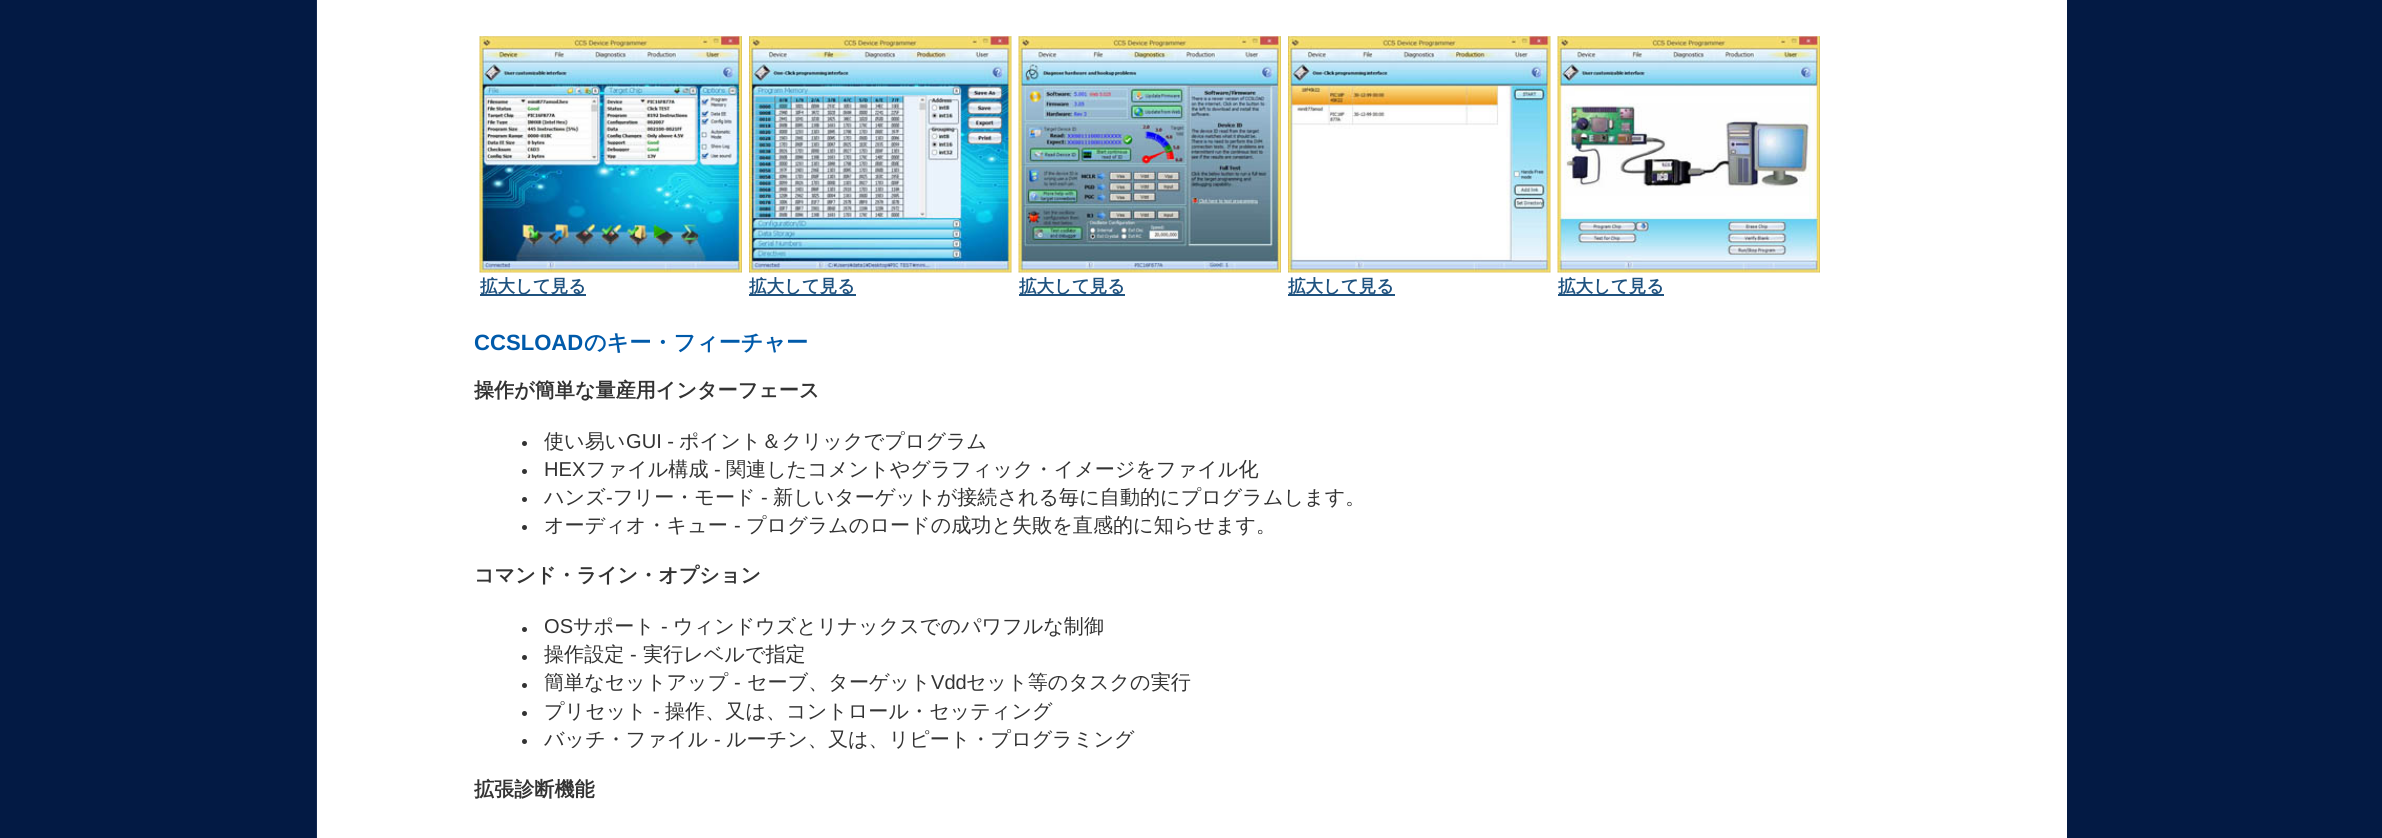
#include <cairo/cairo.h>
#include <math.h>
#include <stddef.h>

typedef struct { double x, y; const char *s; } line_t;
static cairo_t *cr;

static void rgb(unsigned color)
{
	cairo_set_source_rgb(cr, (color >> 16) / 255.0, (color >> 8 & 255) / 255.0, (color & 255) / 255.0);
}

static void image(const char *path, double x, double y, double w, double h)
{
	cairo_surface_t *image = cairo_image_surface_create_from_png(path);
	cairo_save(cr);
	cairo_set_source_surface(cr, image, x, y);
	cairo_rectangle(cr, x, y, w, h);
	cairo_fill(cr);
	cairo_restore(cr);
	cairo_surface_destroy(image);
}

int main(void) {
	cairo_surface_t *surface = cairo_image_surface_create(CAIRO_FORMAT_RGB24, 2382, 838);
	cr = cairo_create(surface);
	cairo_font_options_t *options = cairo_font_options_create();
	cairo_font_options_set_hint_metrics(options, CAIRO_HINT_METRICS_OFF);
	cairo_font_options_set_hint_style(options, CAIRO_HINT_STYLE_NONE);
	cairo_set_font_options(cr, options);
	cairo_set_miter_limit(cr, 4);
	rgb(0x031a44);
	cairo_paint(cr);
	rgb(0xffffff);
	cairo_rectangle(cr, 317, 0, 1750, 838);
	cairo_fill(cr);
	rgb(0x12284f);
	cairo_rectangle(cr, 316, 0, 1, 838);
	cairo_fill(cr);
	image("img/1.png", 479, 36, 263, 237);
	rgb(0x1f527f);
	cairo_rectangle(cr, 480, 294, 106, 2);
	cairo_fill(cr);
	image("img/2.png", 749, 36, 263, 237);
	cairo_rectangle(cr, 749, 294, 107, 2);
	cairo_fill(cr);
	image("img/3.png", 1018, 36, 263, 237);
	cairo_rectangle(cr, 1019, 294, 106, 2);
	cairo_fill(cr);
	image("img/4.png", 1288, 36, 263, 237);
	cairo_rectangle(cr, 1288, 294, 107, 2);
	cairo_fill(cr);
	image("img/5.png", 1557, 36, 263, 237);
	cairo_rectangle(cr, 1558, 294, 106, 2);
	cairo_fill(cr);
	rgb(0x333333);
	cairo_arc(cr, 524.5, 443.5, 2.5, 0, 2 * M_PI);
	cairo_fill(cr);
	cairo_arc(cr, 524.5, 471.5, 2.5, 0, 2 * M_PI);
	cairo_fill(cr);
	cairo_arc(cr, 524.5, 499.5, 2.5, 0, 2 * M_PI);
	cairo_fill(cr);
	cairo_arc(cr, 524.5, 527.5, 2.5, 0, 2 * M_PI);
	cairo_fill(cr);
	cairo_arc(cr, 524.5, 629.5, 2.5, 0, 2 * M_PI);
	cairo_fill(cr);
	cairo_arc(cr, 524.5, 657.5, 2.5, 0, 2 * M_PI);
	cairo_fill(cr);
	cairo_arc(cr, 524.5, 685.5, 2.5, 0, 2 * M_PI);
	cairo_fill(cr);
	cairo_arc(cr, 524.5, 713.5, 2.5, 0, 2 * M_PI);
	cairo_fill(cr);
	cairo_arc(cr, 524.5, 741.5, 2.5, 0, 2 * M_PI);
	cairo_fill(cr);
	cairo_select_font_face(cr, "WenQuanYi Zen Hei", CAIRO_FONT_SLANT_NORMAL, CAIRO_FONT_WEIGHT_BOLD);
	cairo_set_font_size(cr, 17.5);
	rgb(0x1f527f);
	{
		static const line_t items[] = {
			{480, 292, "拡大して見る"},
			{749, 292, "拡大して見る"},
			{1019, 292, "拡大して見る"},
			{1288, 292, "拡大して見る"},
			{1558, 292, "拡大して見る"},
		};
		for (size_t i = 0; i < sizeof items / sizeof *items; i++) {
			cairo_move_to(cr, items[i].x, items[i].y);
			cairo_show_text(cr, items[i].s);
		}
	}
	cairo_select_font_face(cr, "Liberation Sans", CAIRO_FONT_SLANT_NORMAL, CAIRO_FONT_WEIGHT_BOLD);
	cairo_set_font_size(cr, 22.1);
	rgb(0x005aaa);
	cairo_move_to(cr, 474, 350);
	cairo_show_text(cr, "CCSLOAD");
	cairo_select_font_face(cr, "WenQuanYi Zen Hei", CAIRO_FONT_SLANT_NORMAL, CAIRO_FONT_WEIGHT_BOLD);
	cairo_move_to(cr, 584, 350);
	cairo_show_text(cr, "のキー・フィーチャー");
	cairo_set_font_size(cr, 20.1);
	rgb(0x333333);
	cairo_move_to(cr, 474, 397);
	cairo_show_text(cr, "操作が簡単な量産用インターフェース");
	cairo_select_font_face(cr, "WenQuanYi Zen Hei Medium", CAIRO_FONT_SLANT_NORMAL, CAIRO_FONT_WEIGHT_NORMAL);
	cairo_move_to(cr, 544, 448);
	cairo_show_text(cr, "使い易い");
	cairo_select_font_face(cr, "Liberation Sans", CAIRO_FONT_SLANT_NORMAL, CAIRO_FONT_WEIGHT_NORMAL);
	cairo_move_to(cr, 626, 448);
	cairo_show_text(cr, "GUI -");
	cairo_select_font_face(cr, "WenQuanYi Zen Hei Medium", CAIRO_FONT_SLANT_NORMAL, CAIRO_FONT_WEIGHT_NORMAL);
	cairo_move_to(cr, 679, 448);
	cairo_show_text(cr, "ポイント＆クリックでプログラム");
	cairo_select_font_face(cr, "Liberation Sans", CAIRO_FONT_SLANT_NORMAL, CAIRO_FONT_WEIGHT_NORMAL);
	cairo_move_to(cr, 544, 476);
	cairo_show_text(cr, "HEX");
	cairo_select_font_face(cr, "WenQuanYi Zen Hei Medium", CAIRO_FONT_SLANT_NORMAL, CAIRO_FONT_WEIGHT_NORMAL);
	cairo_move_to(cr, 586, 476);
	cairo_show_text(cr, "ファイル構成");
	cairo_select_font_face(cr, "Liberation Sans", CAIRO_FONT_SLANT_NORMAL, CAIRO_FONT_WEIGHT_NORMAL);
	cairo_move_to(cr, 714, 476);
	cairo_show_text(cr, "-");
	cairo_select_font_face(cr, "WenQuanYi Zen Hei Medium", CAIRO_FONT_SLANT_NORMAL, CAIRO_FONT_WEIGHT_NORMAL);
	cairo_move_to(cr, 726, 476);
	cairo_show_text(cr, "関連したコメントやグラフィック・イメージをファイル化");
	cairo_move_to(cr, 544, 504);
	cairo_show_text(cr, "ハンズ");
	cairo_select_font_face(cr, "Liberation Sans", CAIRO_FONT_SLANT_NORMAL, CAIRO_FONT_WEIGHT_NORMAL);
	cairo_move_to(cr, 606, 504);
	cairo_show_text(cr, "-");
	cairo_select_font_face(cr, "WenQuanYi Zen Hei Medium", CAIRO_FONT_SLANT_NORMAL, CAIRO_FONT_WEIGHT_NORMAL);
	cairo_move_to(cr, 613, 504);
	cairo_show_text(cr, "フリー・モード");
	cairo_select_font_face(cr, "Liberation Sans", CAIRO_FONT_SLANT_NORMAL, CAIRO_FONT_WEIGHT_NORMAL);
	cairo_move_to(cr, 761, 504);
	cairo_show_text(cr, "-");
	cairo_select_font_face(cr, "WenQuanYi Zen Hei Medium", CAIRO_FONT_SLANT_NORMAL, CAIRO_FONT_WEIGHT_NORMAL);
	cairo_move_to(cr, 773, 504);
	cairo_show_text(cr, "新しいターゲットが接続される毎に自動的にプログラムします。");
	cairo_move_to(cr, 544, 532);
	cairo_show_text(cr, "オーディオ・キュー");
	cairo_select_font_face(cr, "Liberation Sans", CAIRO_FONT_SLANT_NORMAL, CAIRO_FONT_WEIGHT_NORMAL);
	cairo_move_to(cr, 734, 532);
	cairo_show_text(cr, "-");
	cairo_select_font_face(cr, "WenQuanYi Zen Hei Medium", CAIRO_FONT_SLANT_NORMAL, CAIRO_FONT_WEIGHT_NORMAL);
	cairo_move_to(cr, 746, 532);
	cairo_show_text(cr, "プログラムのロードの成功と失敗を直感的に知らせます。");
	cairo_select_font_face(cr, "WenQuanYi Zen Hei", CAIRO_FONT_SLANT_NORMAL, CAIRO_FONT_WEIGHT_BOLD);
	cairo_move_to(cr, 474, 582);
	cairo_show_text(cr, "コマンド・ライン・オプション");
	cairo_select_font_face(cr, "Liberation Sans", CAIRO_FONT_SLANT_NORMAL, CAIRO_FONT_WEIGHT_NORMAL);
	cairo_move_to(cr, 544, 633);
	cairo_show_text(cr, "OS");
	cairo_select_font_face(cr, "WenQuanYi Zen Hei Medium", CAIRO_FONT_SLANT_NORMAL, CAIRO_FONT_WEIGHT_NORMAL);
	cairo_move_to(cr, 573, 633);
	cairo_show_text(cr, "サポート");
	cairo_select_font_face(cr, "Liberation Sans", CAIRO_FONT_SLANT_NORMAL, CAIRO_FONT_WEIGHT_NORMAL);
	cairo_move_to(cr, 661, 633);
	cairo_show_text(cr, "-");
	cairo_select_font_face(cr, "WenQuanYi Zen Hei Medium", CAIRO_FONT_SLANT_NORMAL, CAIRO_FONT_WEIGHT_NORMAL);
	cairo_move_to(cr, 673, 633);
	cairo_show_text(cr, "ウィンドウズとリナックスでのパワフルな制御");
	cairo_move_to(cr, 544, 661);
	cairo_show_text(cr, "操作設定");
	cairo_select_font_face(cr, "Liberation Sans", CAIRO_FONT_SLANT_NORMAL, CAIRO_FONT_WEIGHT_NORMAL);
	cairo_move_to(cr, 630, 661);
	cairo_show_text(cr, "-");
	cairo_select_font_face(cr, "WenQuanYi Zen Hei Medium", CAIRO_FONT_SLANT_NORMAL, CAIRO_FONT_WEIGHT_NORMAL);
	cairo_move_to(cr, 643, 661);
	cairo_show_text(cr, "実行レベルで指定");
	cairo_move_to(cr, 544, 689);
	cairo_show_text(cr, "簡単なセットアップ");
	cairo_select_font_face(cr, "Liberation Sans", CAIRO_FONT_SLANT_NORMAL, CAIRO_FONT_WEIGHT_NORMAL);
	cairo_move_to(cr, 734, 689);
	cairo_show_text(cr, "-");
	cairo_select_font_face(cr, "WenQuanYi Zen Hei Medium", CAIRO_FONT_SLANT_NORMAL, CAIRO_FONT_WEIGHT_NORMAL);
	cairo_move_to(cr, 747, 689);
	cairo_show_text(cr, "セーブ、ターゲット");
	cairo_select_font_face(cr, "Liberation Sans", CAIRO_FONT_SLANT_NORMAL, CAIRO_FONT_WEIGHT_NORMAL);
	cairo_move_to(cr, 931, 689);
	cairo_show_text(cr, "Vdd");
	cairo_select_font_face(cr, "WenQuanYi Zen Hei Medium", CAIRO_FONT_SLANT_NORMAL, CAIRO_FONT_WEIGHT_NORMAL);
	cairo_move_to(cr, 966, 689);
	cairo_show_text(cr, "セット等のタスクの実行");
	cairo_move_to(cr, 544, 718);
	cairo_show_text(cr, "プリセット");
	cairo_select_font_face(cr, "Liberation Sans", CAIRO_FONT_SLANT_NORMAL, CAIRO_FONT_WEIGHT_NORMAL);
	cairo_move_to(cr, 653, 718);
	cairo_show_text(cr, "-");
	cairo_select_font_face(cr, "WenQuanYi Zen Hei Medium", CAIRO_FONT_SLANT_NORMAL, CAIRO_FONT_WEIGHT_NORMAL);
	cairo_move_to(cr, 665, 718);
	cairo_show_text(cr, "操作、又は、コントロール・セッティング");
	cairo_move_to(cr, 544, 746);
	cairo_show_text(cr, "バッチ・ファイル");
	cairo_select_font_face(cr, "Liberation Sans", CAIRO_FONT_SLANT_NORMAL, CAIRO_FONT_WEIGHT_NORMAL);
	cairo_move_to(cr, 714, 746);
	cairo_show_text(cr, "-");
	cairo_select_font_face(cr, "WenQuanYi Zen Hei Medium", CAIRO_FONT_SLANT_NORMAL, CAIRO_FONT_WEIGHT_NORMAL);
	cairo_move_to(cr, 726, 746);
	cairo_show_text(cr, "ルーチン、又は、リピート・プログラミング");
	cairo_select_font_face(cr, "WenQuanYi Zen Hei", CAIRO_FONT_SLANT_NORMAL, CAIRO_FONT_WEIGHT_BOLD);
	cairo_move_to(cr, 474, 796);
	cairo_show_text(cr, "拡張診断機能");
	cairo_surface_write_to_png(surface, "page.png");
	cairo_font_options_destroy(options);
	cairo_destroy(cr);
	cairo_surface_destroy(surface);
	return 0;
}
